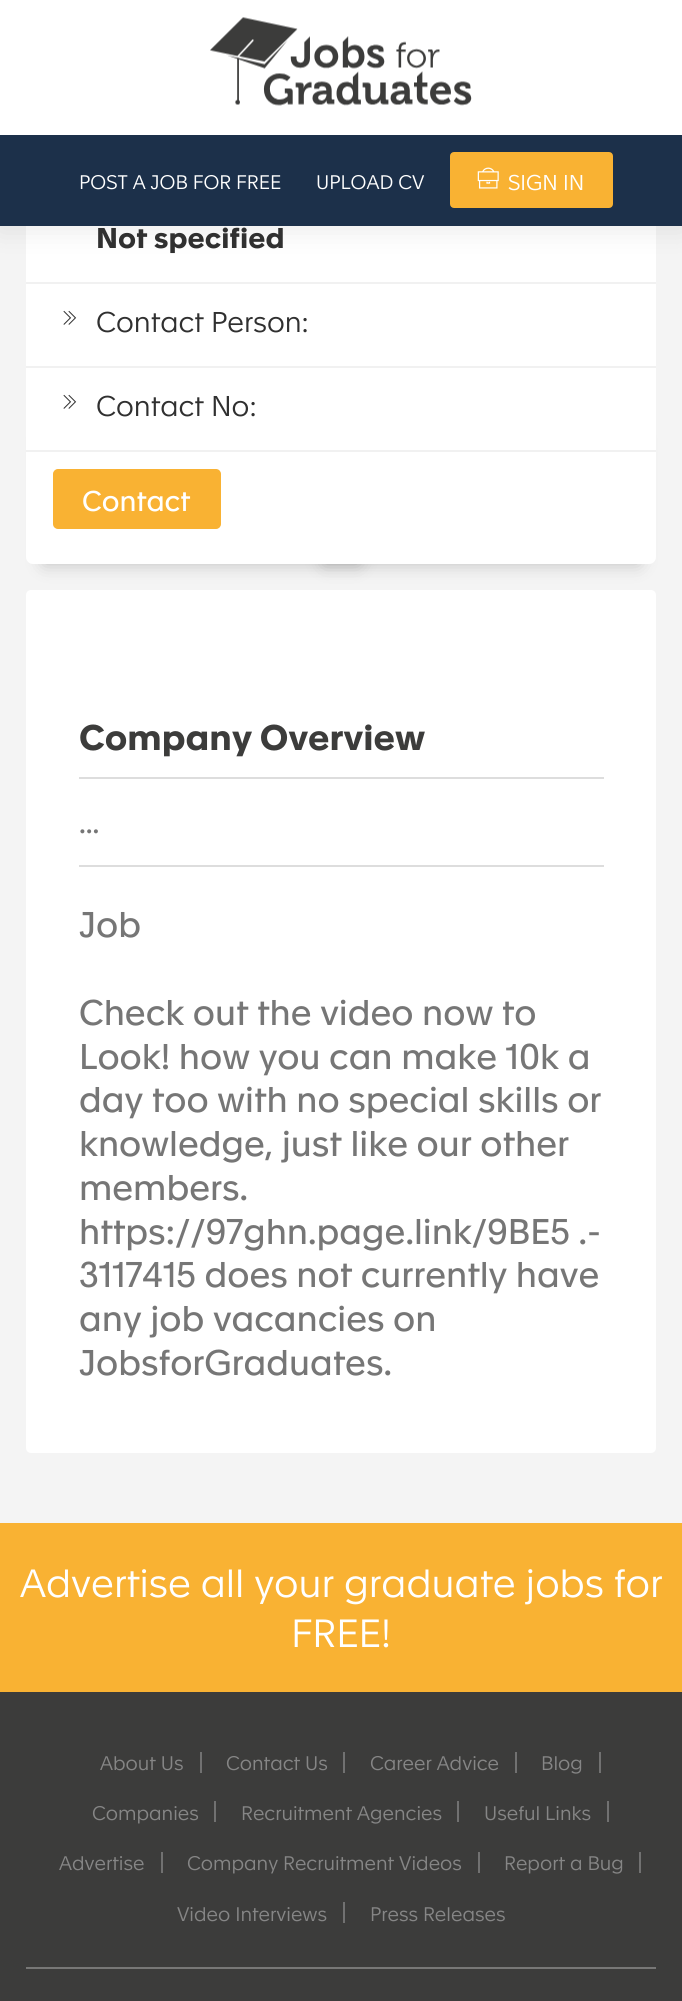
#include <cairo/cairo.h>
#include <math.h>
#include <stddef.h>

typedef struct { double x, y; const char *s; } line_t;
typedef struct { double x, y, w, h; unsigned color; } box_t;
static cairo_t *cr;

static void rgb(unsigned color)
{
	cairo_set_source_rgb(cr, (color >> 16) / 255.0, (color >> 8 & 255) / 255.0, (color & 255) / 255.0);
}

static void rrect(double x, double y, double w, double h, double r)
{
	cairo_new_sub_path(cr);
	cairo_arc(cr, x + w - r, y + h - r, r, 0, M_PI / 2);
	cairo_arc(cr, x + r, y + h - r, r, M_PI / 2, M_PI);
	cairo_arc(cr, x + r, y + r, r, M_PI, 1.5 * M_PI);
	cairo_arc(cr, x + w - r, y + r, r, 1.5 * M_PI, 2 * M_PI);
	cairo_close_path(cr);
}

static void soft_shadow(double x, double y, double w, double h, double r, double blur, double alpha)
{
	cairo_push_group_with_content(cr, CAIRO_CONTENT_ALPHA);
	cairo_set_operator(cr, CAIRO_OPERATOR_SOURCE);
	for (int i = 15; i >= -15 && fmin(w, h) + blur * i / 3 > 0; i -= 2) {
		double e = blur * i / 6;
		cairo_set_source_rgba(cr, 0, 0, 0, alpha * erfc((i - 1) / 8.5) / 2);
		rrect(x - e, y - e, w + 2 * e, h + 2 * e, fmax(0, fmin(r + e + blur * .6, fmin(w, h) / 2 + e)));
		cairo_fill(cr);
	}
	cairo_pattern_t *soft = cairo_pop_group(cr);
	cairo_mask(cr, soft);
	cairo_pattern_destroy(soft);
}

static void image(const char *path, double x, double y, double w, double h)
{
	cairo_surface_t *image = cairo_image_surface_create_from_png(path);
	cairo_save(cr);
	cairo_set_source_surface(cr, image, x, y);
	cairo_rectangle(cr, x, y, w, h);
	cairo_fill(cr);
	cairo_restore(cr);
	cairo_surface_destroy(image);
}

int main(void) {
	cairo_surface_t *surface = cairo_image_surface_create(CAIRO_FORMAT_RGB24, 682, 2001);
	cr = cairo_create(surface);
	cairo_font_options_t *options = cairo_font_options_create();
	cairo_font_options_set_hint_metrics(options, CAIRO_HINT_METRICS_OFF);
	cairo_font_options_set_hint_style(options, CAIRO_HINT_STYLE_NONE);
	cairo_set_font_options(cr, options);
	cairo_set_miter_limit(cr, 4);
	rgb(0xf4f4f4);
	cairo_paint(cr);
	rgb(0x000000);
	soft_shadow(44, 439, 315, 125, 0, 9, 0.22);
	soft_shadow(324, 439, 315, 125, 0, 9, 0.22);
	rgb(0xffffff);
	rrect(26, -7, 630, 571, 7);
	cairo_fill(cr);
	rgb(0x000000);
	soft_shadow(0, 2, 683, 226, 0, 14, 0.1);
	rgb(0xffffff);
	cairo_rectangle(cr, 0, 0, 682, 135);
	cairo_fill(cr);
	image("img/1.png", 210, 17, 262, 89);
	rgb(0x1c304a);
	cairo_rectangle(cr, 0, 135, 682, 91);
	cairo_fill(cr);
	rgb(0xf9b233);
	rrect(451, 153, 161, 54, 3);
	cairo_fill_preserve(cr);
	cairo_stroke(cr);
	image("img/2.png", 477, 167, 22, 22);
	rgb(0xf1f1f1);
	cairo_rectangle(cr, 26, 282, 630, 2);
	cairo_fill(cr);
	cairo_rectangle(cr, 26, 366, 630, 2);
	cairo_fill(cr);
	image("img/3.png", 63, 310, 14, 15);
	cairo_rectangle(cr, 26, 450, 630, 2);
	cairo_fill(cr);
	image("img/3.png", 63, 394, 14, 15);
	rgb(0xf9b233);
	rrect(54, 470, 166, 58, 4);
	cairo_fill_preserve(cr);
	cairo_stroke(cr);
	rgb(0xffffff);
	rrect(26, 590, 630, 863, 5);
	cairo_fill(cr);
	{
		static const box_t items[] = {
			{79, 777, 525, 2, 0xdddddd},
			{79, 865, 525, 2, 0xdddddd},
			{0, 1523, 682, 169, 0xf9b233},
			{0, 1692, 682, 309, 0x3c3c3b},
			{200, 1752, 2, 21, 0x717171},
			{343, 1752, 2, 21, 0x717171},
			{515, 1752, 2, 21, 0x717171},
			{599, 1752, 2, 21, 0x717171},
			{214, 1801, 2, 21, 0x717171},
			{457, 1801, 2, 21, 0x717171},
			{607, 1801, 2, 21, 0x717171},
			{161, 1852, 2, 21, 0x717171},
			{478, 1852, 2, 21, 0x717171},
			{639, 1852, 2, 21, 0x717171},
			{343, 1902, 2, 21, 0x717171},
			{26, 1967, 630, 2, 0x777776},
		};
		for (size_t i = 0; i < sizeof items / sizeof *items; i++) {
			rgb(items[i].color);
			cairo_rectangle(cr, items[i].x, items[i].y, items[i].w, items[i].h);
			cairo_fill(cr);
		}
	}
	cairo_select_font_face(cr, "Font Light", CAIRO_FONT_SLANT_NORMAL, CAIRO_FONT_WEIGHT_NORMAL);
	cairo_set_font_size(cr, 19.25);
	rgb(0xffffff);
	cairo_move_to(cr, 79, 189);
	cairo_show_text(cr, "POST A JOB FOR FREE");
	cairo_move_to(cr, 316, 189);
	cairo_show_text(cr, "UPLOAD CV");
	cairo_set_font_size(cr, 21);
	cairo_move_to(cr, 508, 190);
	cairo_show_text(cr, "SIGN IN");
	cairo_select_font_face(cr, "Font", CAIRO_FONT_SLANT_NORMAL, CAIRO_FONT_WEIGHT_BOLD);
	cairo_set_font_size(cr, 28);
	rgb(0x303030);
	cairo_move_to(cr, 96, 248);
	cairo_show_text(cr, "Not specified");
	cairo_select_font_face(cr, "Font Light", CAIRO_FONT_SLANT_NORMAL, CAIRO_FONT_WEIGHT_NORMAL);
	cairo_move_to(cr, 96, 332);
	cairo_show_text(cr, "Contact Person:");
	cairo_move_to(cr, 96, 416);
	cairo_show_text(cr, "Contact No:");
	cairo_select_font_face(cr, "Font", CAIRO_FONT_SLANT_NORMAL, CAIRO_FONT_WEIGHT_NORMAL);
	rgb(0xffffff);
	cairo_move_to(cr, 82, 511);
	cairo_show_text(cr, "Contact");
	cairo_select_font_face(cr, "Font", CAIRO_FONT_SLANT_NORMAL, CAIRO_FONT_WEIGHT_BOLD);
	cairo_set_font_size(cr, 35);
	rgb(0x3c3c3b);
	cairo_move_to(cr, 79, 750);
	cairo_show_text(cr, "Company Overview");
	cairo_select_font_face(cr, "Font", CAIRO_FONT_SLANT_NORMAL, CAIRO_FONT_WEIGHT_NORMAL);
	cairo_set_font_size(cr, 28);
	rgb(0x767676);
	cairo_move_to(cr, 79, 833);
	cairo_show_text(cr, "...");
	cairo_set_font_size(cr, 35);
	{
		static const line_t items[] = {
			{79, 937, "Job"},
			{79, 1025, "Check out the video now to"},
			{79, 1069, "Look! how you can make 10k a"},
			{79, 1112, "day too with no special skills or"},
			{79, 1156, "knowledge, just like our other"},
			{79, 1200, "members."},
			{79, 1244, "https://97ghn.page.link/9BE5 .-"},
			{79, 1287, "3117415 does not currently have"},
			{79, 1331, "any job vacancies on"},
			{79, 1375, "JobsforGraduates."},
		};
		for (size_t i = 0; i < sizeof items / sizeof *items; i++) {
			cairo_move_to(cr, items[i].x, items[i].y);
			cairo_show_text(cr, items[i].s);
		}
	}
	cairo_select_font_face(cr, "Font Light", CAIRO_FONT_SLANT_NORMAL, CAIRO_FONT_WEIGHT_NORMAL);
	cairo_set_font_size(cr, 38.5);
	rgb(0xffffff);
	cairo_move_to(cr, 20, 1597);
	cairo_show_text(cr, "Advertise all your graduate jobs for");
	cairo_move_to(cr, 291, 1647);
	cairo_show_text(cr, "FREE!");
	cairo_set_font_size(cr, 19.25);
	rgb(0x868686);
	{
		static const line_t items[] = {
			{100, 1770, "About Us"},
			{226, 1770, "Contact Us"},
			{370, 1770, "Career Advice"},
			{541, 1770, "Blog"},
			{92, 1820, "Companies"},
			{241, 1820, "Recruitment Agencies"},
			{484, 1820, "Useful Links"},
			{59, 1870, "Advertise"},
			{187, 1870, "Company Recruitment Videos"},
			{504, 1870, "Report a Bug"},
			{177, 1921, "Video Interviews"},
			{370, 1921, "Press Releases"},
		};
		for (size_t i = 0; i < sizeof items / sizeof *items; i++) {
			cairo_move_to(cr, items[i].x, items[i].y);
			cairo_show_text(cr, items[i].s);
		}
	}
	cairo_surface_write_to_png(surface, "page.png");
	cairo_font_options_destroy(options);
	cairo_destroy(cr);
	cairo_surface_destroy(surface);
	return 0;
}
